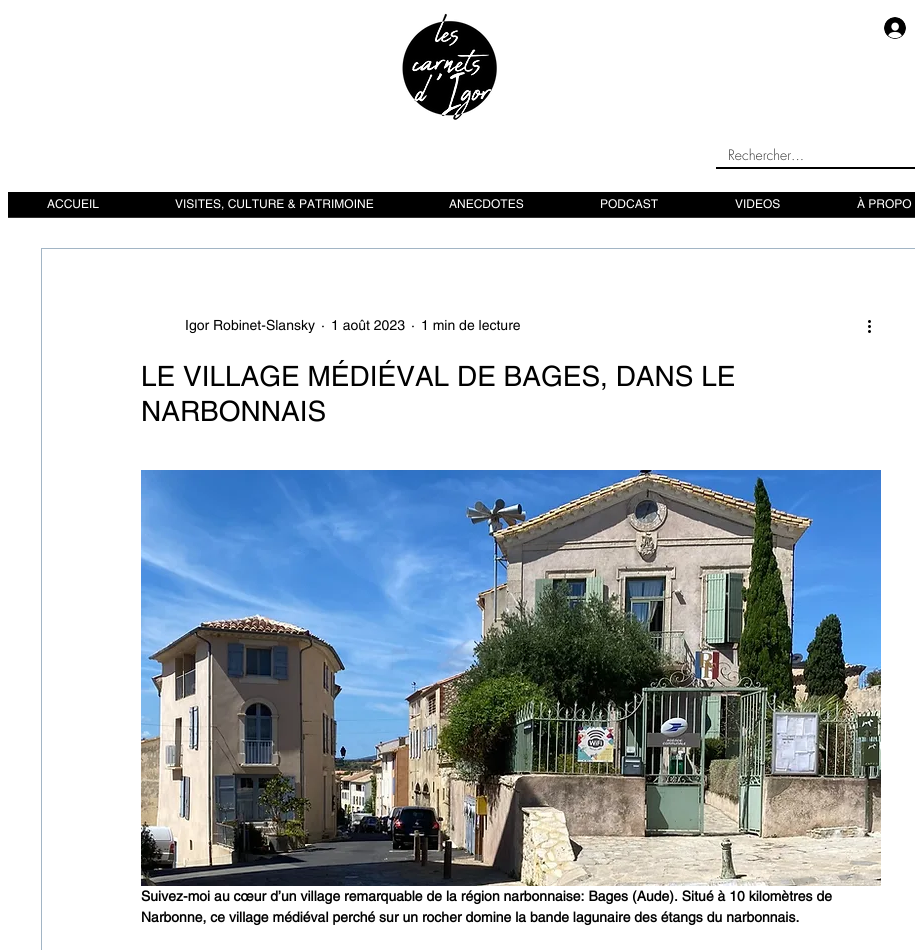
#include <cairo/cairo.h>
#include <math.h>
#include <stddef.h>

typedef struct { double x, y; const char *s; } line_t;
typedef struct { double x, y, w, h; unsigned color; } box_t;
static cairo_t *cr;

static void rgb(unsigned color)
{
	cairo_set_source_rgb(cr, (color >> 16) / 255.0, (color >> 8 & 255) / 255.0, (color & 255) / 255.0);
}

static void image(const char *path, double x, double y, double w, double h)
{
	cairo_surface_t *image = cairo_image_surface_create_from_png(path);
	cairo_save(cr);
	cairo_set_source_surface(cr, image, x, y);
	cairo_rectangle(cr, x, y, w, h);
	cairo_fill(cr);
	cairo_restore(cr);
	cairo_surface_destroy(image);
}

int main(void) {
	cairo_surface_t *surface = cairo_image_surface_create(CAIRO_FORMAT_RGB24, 915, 950);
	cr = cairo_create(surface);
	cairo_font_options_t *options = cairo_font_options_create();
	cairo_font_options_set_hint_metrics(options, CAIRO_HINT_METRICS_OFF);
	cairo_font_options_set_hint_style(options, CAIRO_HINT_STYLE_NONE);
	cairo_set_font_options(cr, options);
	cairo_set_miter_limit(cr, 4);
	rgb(0xffffff);
	cairo_paint(cr);
	image("img/1.png", 402, 13, 95, 107);
	image("img/2.png", 884, 17, 22, 22);
	{
		static const box_t items[] = {
			{716, 167, 199, 2, 0x000000},
			{8, 192, 907, 25, 0x000000},
			{8, 217, 907, 1, 0x303030},
		};
		for (size_t i = 0; i < sizeof items / sizeof *items; i++) {
			rgb(items[i].color);
			cairo_rectangle(cr, items[i].x, items[i].y, items[i].w, items[i].h);
			cairo_fill(cr);
		}
	}
	cairo_rectangle(cr, 41.5, 248.5, 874, 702);
	rgb(0xa2b5c5);
	cairo_set_line_width(cr, 1);
	cairo_stroke(cr);
	image("img/3.png", 868, 320, 3, 13);
	image("img/4.png", 141, 470, 740, 416);
	cairo_select_font_face(cr, "futura Light", CAIRO_FONT_SLANT_NORMAL, CAIRO_FONT_WEIGHT_NORMAL);
	cairo_set_font_size(cr, 14);
	rgb(0x303030);
	cairo_move_to(cr, 728, 160);
	cairo_show_text(cr, "Rechercher...");
	cairo_select_font_face(cr, "helvetica", CAIRO_FONT_SLANT_NORMAL, CAIRO_FONT_WEIGHT_NORMAL);
	cairo_set_font_size(cr, 12);
	rgb(0xffffff);
	{
		static const line_t items[] = {
			{47, 208, "ACCUEIL"},
			{175, 208, "VISITES, CULTURE & PATRIMOINE"},
			{449, 208, "ANECDOTES"},
			{600, 208, "PODCAST"},
			{735, 208, "VIDEOS"},
			{857, 208, "À PROPO"},
		};
		for (size_t i = 0; i < sizeof items / sizeof *items; i++) {
			cairo_move_to(cr, items[i].x, items[i].y);
			cairo_show_text(cr, items[i].s);
		}
	}
	cairo_set_font_size(cr, 14);
	rgb(0x000000);
	{
		static const line_t items[] = {
			{185, 330, "Igor Robinet-Slansky"},
			{321, 330, "·"},
			{331, 330, "1 août 2023"},
			{411, 330, "·"},
			{421, 330, "1 min de lecture"},
		};
		for (size_t i = 0; i < sizeof items / sizeof *items; i++) {
			cairo_move_to(cr, items[i].x, items[i].y);
			cairo_show_text(cr, items[i].s);
		}
	}
	cairo_set_font_size(cr, 28);
	cairo_move_to(cr, 141, 386);
	cairo_show_text(cr, "LE VILLAGE MÉDIÉVAL DE BAGES, DANS LE");
	cairo_move_to(cr, 141, 421);
	cairo_show_text(cr, "NARBONNAIS");
	cairo_select_font_face(cr, "helvetica", CAIRO_FONT_SLANT_NORMAL, CAIRO_FONT_WEIGHT_BOLD);
	cairo_set_font_size(cr, 14);
	cairo_move_to(cr, 141, 901);
	cairo_show_text(cr, "Suivez-moi au cœur d’un village remarquable de la région narbonnaise: Bages (Aude). Situé à 10 kilomètres de");
	cairo_move_to(cr, 141, 922);
	cairo_show_text(cr, "Narbonne, ce village médiéval perché sur un rocher domine la bande lagunaire des étangs du narbonnais.");
	cairo_surface_write_to_png(surface, "page.png");
	cairo_font_options_destroy(options);
	cairo_destroy(cr);
	cairo_surface_destroy(surface);
	return 0;
}
